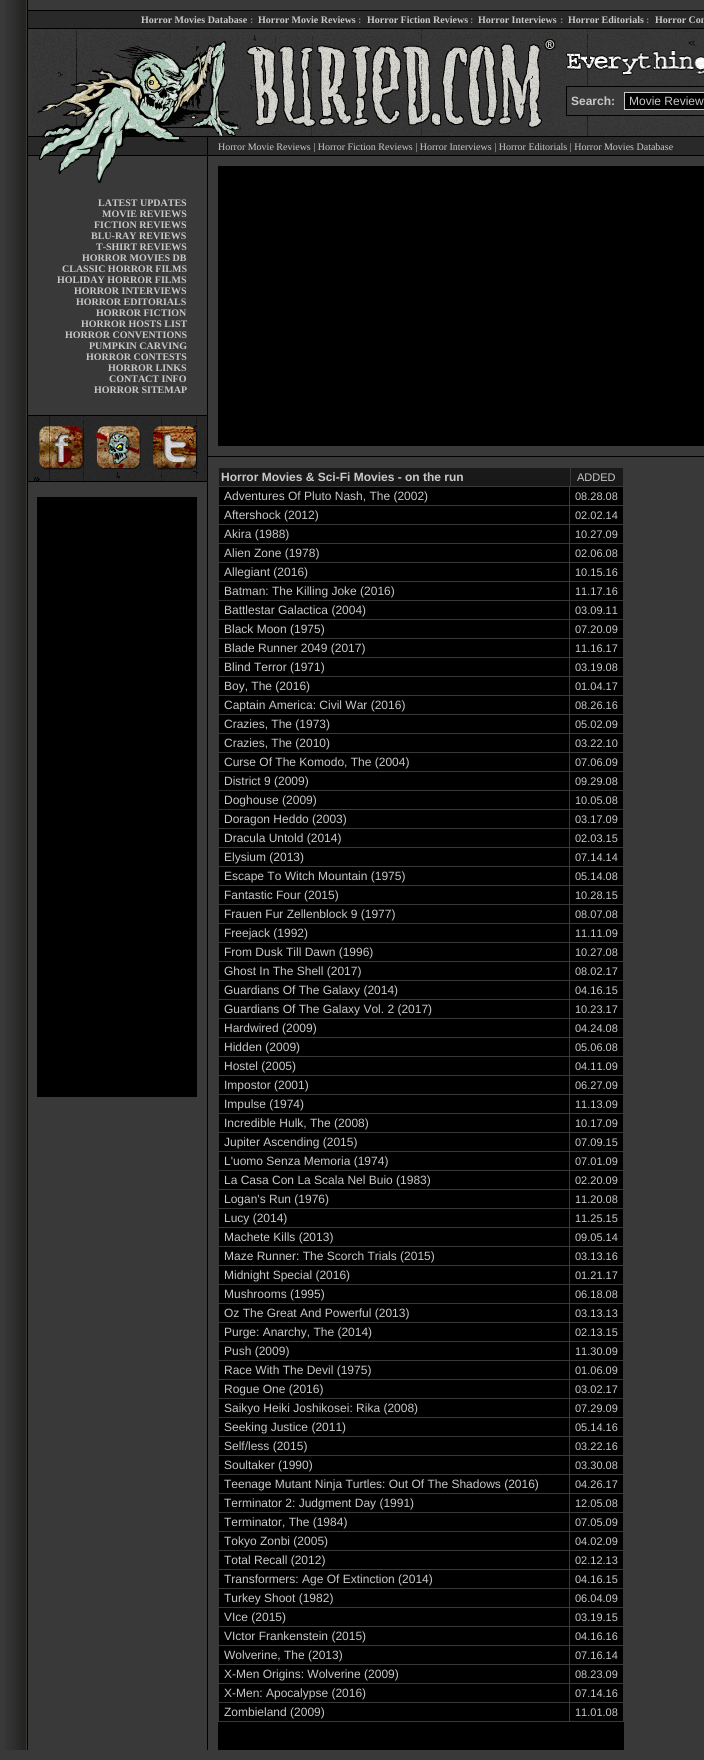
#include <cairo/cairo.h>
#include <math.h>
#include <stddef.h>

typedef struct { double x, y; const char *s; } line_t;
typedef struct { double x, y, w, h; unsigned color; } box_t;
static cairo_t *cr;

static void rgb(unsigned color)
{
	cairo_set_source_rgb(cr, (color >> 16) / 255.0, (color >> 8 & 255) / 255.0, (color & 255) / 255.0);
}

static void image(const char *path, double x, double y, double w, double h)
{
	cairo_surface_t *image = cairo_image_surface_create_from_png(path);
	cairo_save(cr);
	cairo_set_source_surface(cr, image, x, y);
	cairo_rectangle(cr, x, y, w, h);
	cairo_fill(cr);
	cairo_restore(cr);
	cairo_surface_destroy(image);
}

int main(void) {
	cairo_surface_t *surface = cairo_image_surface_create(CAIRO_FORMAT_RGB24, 704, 1760);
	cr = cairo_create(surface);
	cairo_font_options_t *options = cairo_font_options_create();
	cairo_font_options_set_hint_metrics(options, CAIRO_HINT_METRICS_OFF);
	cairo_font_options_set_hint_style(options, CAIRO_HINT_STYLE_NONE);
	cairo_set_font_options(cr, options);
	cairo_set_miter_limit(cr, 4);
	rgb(0x393939);
	cairo_paint(cr);
	image("img/1.png", 5, 0, 21, 1750);
	{
		static const box_t items[] = {
			{27, 0, 1, 1750, 0x000000},
			{28, 10, 676, 1, 0x000000},
			{28, 11, 676, 17, 0x292929},
			{28, 28, 676, 1, 0x000000},
		};
		for (size_t i = 0; i < sizeof items / sizeof *items; i++) {
			rgb(items[i].color);
			cairo_rectangle(cr, items[i].x, items[i].y, items[i].w, items[i].h);
			cairo_fill(cr);
		}
	}
	image("img/2.png", 31, 29, 176, 57);
	image("img/3.png", 207, 29, 359, 57);
	image("img/4.png", 566, 29, 138, 57);
	image("img/5.png", 31, 86, 176, 50);
	image("img/6.png", 207, 86, 359, 50);
	image("img/7.png", 566, 116, 138, 20);
	cairo_rectangle(cr, 566.5, 86.5, 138, 29);
	cairo_set_line_width(cr, 1);
	cairo_stroke(cr);
	cairo_rectangle(cr, 624.5, 92.5, 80, 17);
	cairo_fill_preserve(cr);
	rgb(0xc8c8c8);
	cairo_stroke(cr);
	image("img/8.png", 28, 136, 179, 20);
	{
		static const box_t items[] = {
			{207, 136, 1, 1614, 0x000000},
			{208, 136, 496, 1, 0x000000},
			{208, 137, 496, 18, 0x292929},
			{208, 155, 496, 1, 0x000000},
		};
		for (size_t i = 0; i < sizeof items / sizeof *items; i++) {
			rgb(items[i].color);
			cairo_rectangle(cr, items[i].x, items[i].y, items[i].w, items[i].h);
			cairo_fill(cr);
		}
	}
	image("img/9.png", 39, 156, 76, 27);
	cairo_rectangle(cr, 28, 415, 179, 1);
	cairo_fill(cr);
	image("img/10.png", 28, 416, 60, 65);
	image("img/11.png", 88, 416, 59, 65);
	image("img/12.png", 147, 416, 60, 65);
	{
		static const box_t items[] = {
			{28, 481, 179, 1, 0x000000},
			{37, 497, 160, 600, 0x000000},
			{218, 166, 486, 280, 0x000000},
			{208, 456, 496, 1, 0x000000},
			{218, 1722, 406, 28, 0x000000},
			{219, 468, 351, 18, 0x191919},
			{571, 468, 52, 18, 0x191919},
			{219, 487, 404, 18, 0x000000},
			{569, 487, 1, 18, 0x393939},
			{219, 506, 404, 18, 0x000000},
			{569, 506, 1, 18, 0x393939},
			{219, 525, 404, 18, 0x000000},
			{569, 525, 1, 18, 0x393939},
			{219, 544, 404, 18, 0x000000},
			{569, 544, 1, 18, 0x393939},
			{219, 563, 404, 18, 0x000000},
			{569, 563, 1, 18, 0x393939},
			{219, 582, 404, 18, 0x000000},
			{569, 582, 1, 18, 0x393939},
			{219, 601, 404, 18, 0x000000},
			{569, 601, 1, 18, 0x393939},
			{219, 620, 404, 18, 0x000000},
			{569, 620, 1, 18, 0x393939},
			{219, 639, 404, 18, 0x000000},
			{569, 639, 1, 18, 0x393939},
			{219, 658, 404, 18, 0x000000},
			{569, 658, 1, 18, 0x393939},
			{219, 677, 404, 18, 0x000000},
			{569, 677, 1, 18, 0x393939},
			{219, 696, 404, 18, 0x000000},
			{569, 696, 1, 18, 0x393939},
			{219, 715, 404, 18, 0x000000},
			{569, 715, 1, 18, 0x393939},
			{219, 734, 404, 18, 0x000000},
			{569, 734, 1, 18, 0x393939},
			{219, 753, 404, 18, 0x000000},
			{569, 753, 1, 18, 0x393939},
			{219, 772, 404, 18, 0x000000},
			{569, 772, 1, 18, 0x393939},
			{219, 791, 404, 18, 0x000000},
			{569, 791, 1, 18, 0x393939},
			{219, 810, 404, 18, 0x000000},
			{569, 810, 1, 18, 0x393939},
			{219, 829, 404, 18, 0x000000},
			{569, 829, 1, 18, 0x393939},
			{219, 848, 404, 18, 0x000000},
			{569, 848, 1, 18, 0x393939},
			{219, 867, 404, 18, 0x000000},
			{569, 867, 1, 18, 0x393939},
			{219, 886, 404, 18, 0x000000},
			{569, 886, 1, 18, 0x393939},
			{219, 905, 404, 18, 0x000000},
			{569, 905, 1, 18, 0x393939},
			{219, 924, 404, 18, 0x000000},
			{569, 924, 1, 18, 0x393939},
			{219, 943, 404, 18, 0x000000},
			{569, 943, 1, 18, 0x393939},
			{219, 962, 404, 18, 0x000000},
			{569, 962, 1, 18, 0x393939},
			{219, 981, 404, 18, 0x000000},
			{569, 981, 1, 18, 0x393939},
			{219, 1000, 404, 18, 0x000000},
			{569, 1000, 1, 18, 0x393939},
			{219, 1019, 404, 18, 0x000000},
			{569, 1019, 1, 18, 0x393939},
			{219, 1038, 404, 18, 0x000000},
			{569, 1038, 1, 18, 0x393939},
			{219, 1057, 404, 18, 0x000000},
			{569, 1057, 1, 18, 0x393939},
			{219, 1076, 404, 18, 0x000000},
			{569, 1076, 1, 18, 0x393939},
			{219, 1095, 404, 18, 0x000000},
			{569, 1095, 1, 18, 0x393939},
			{219, 1114, 404, 18, 0x000000},
			{569, 1114, 1, 18, 0x393939},
			{219, 1133, 404, 18, 0x000000},
			{569, 1133, 1, 18, 0x393939},
			{219, 1152, 404, 18, 0x000000},
			{569, 1152, 1, 18, 0x393939},
			{219, 1171, 404, 18, 0x000000},
			{569, 1171, 1, 18, 0x393939},
			{219, 1190, 404, 18, 0x000000},
			{569, 1190, 1, 18, 0x393939},
			{219, 1209, 404, 18, 0x000000},
			{569, 1209, 1, 18, 0x393939},
			{219, 1228, 404, 18, 0x000000},
			{569, 1228, 1, 18, 0x393939},
			{219, 1247, 404, 18, 0x000000},
			{569, 1247, 1, 18, 0x393939},
			{219, 1266, 404, 18, 0x000000},
			{569, 1266, 1, 18, 0x393939},
			{219, 1285, 404, 18, 0x000000},
			{569, 1285, 1, 18, 0x393939},
			{219, 1304, 404, 18, 0x000000},
			{569, 1304, 1, 18, 0x393939},
			{219, 1323, 404, 18, 0x000000},
			{569, 1323, 1, 18, 0x393939},
			{219, 1342, 404, 18, 0x000000},
			{569, 1342, 1, 18, 0x393939},
			{219, 1361, 404, 18, 0x000000},
			{569, 1361, 1, 18, 0x393939},
			{219, 1380, 404, 18, 0x000000},
			{569, 1380, 1, 18, 0x393939},
			{219, 1399, 404, 18, 0x000000},
			{569, 1399, 1, 18, 0x393939},
			{219, 1418, 404, 18, 0x000000},
			{569, 1418, 1, 18, 0x393939},
			{219, 1437, 404, 18, 0x000000},
			{569, 1437, 1, 18, 0x393939},
			{219, 1456, 404, 18, 0x000000},
			{569, 1456, 1, 18, 0x393939},
			{219, 1475, 404, 18, 0x000000},
			{569, 1475, 1, 18, 0x393939},
			{219, 1494, 404, 18, 0x000000},
			{569, 1494, 1, 18, 0x393939},
			{219, 1513, 404, 18, 0x000000},
			{569, 1513, 1, 18, 0x393939},
			{219, 1532, 404, 18, 0x000000},
			{569, 1532, 1, 18, 0x393939},
			{219, 1551, 404, 18, 0x000000},
			{569, 1551, 1, 18, 0x393939},
			{219, 1570, 404, 18, 0x000000},
			{569, 1570, 1, 18, 0x393939},
			{219, 1589, 404, 18, 0x000000},
			{569, 1589, 1, 18, 0x393939},
			{219, 1608, 404, 18, 0x000000},
			{569, 1608, 1, 18, 0x393939},
			{219, 1627, 404, 18, 0x000000},
			{569, 1627, 1, 18, 0x393939},
			{219, 1646, 404, 18, 0x000000},
			{569, 1646, 1, 18, 0x393939},
			{219, 1665, 404, 18, 0x000000},
			{569, 1665, 1, 18, 0x393939},
			{219, 1684, 404, 18, 0x000000},
			{569, 1684, 1, 18, 0x393939},
			{219, 1703, 404, 18, 0x000000},
			{569, 1703, 1, 18, 0x393939},
		};
		for (size_t i = 0; i < sizeof items / sizeof *items; i++) {
			rgb(items[i].color);
			cairo_rectangle(cr, items[i].x, items[i].y, items[i].w, items[i].h);
			cairo_fill(cr);
		}
	}
	cairo_select_font_face(cr, "Liberation Serif", CAIRO_FONT_SLANT_NORMAL, CAIRO_FONT_WEIGHT_BOLD);
	cairo_set_font_size(cr, 10);
	rgb(0xc8c8c8);
	cairo_move_to(cr, 141, 23);
	cairo_show_text(cr, "Horror Movies Database");
	rgb(0x888888);
	cairo_move_to(cr, 250, 23);
	cairo_show_text(cr, ":");
	rgb(0xc8c8c8);
	cairo_move_to(cr, 258, 23);
	cairo_show_text(cr, "Horror Movie Reviews");
	rgb(0x888888);
	cairo_move_to(cr, 358, 23);
	cairo_show_text(cr, ":");
	rgb(0xc8c8c8);
	cairo_move_to(cr, 367, 23);
	cairo_show_text(cr, "Horror Fiction Reviews");
	rgb(0x888888);
	cairo_move_to(cr, 470, 23);
	cairo_show_text(cr, ":");
	rgb(0xc8c8c8);
	cairo_move_to(cr, 478, 23);
	cairo_show_text(cr, "Horror Interviews");
	rgb(0x888888);
	cairo_move_to(cr, 560, 23);
	cairo_show_text(cr, ":");
	rgb(0xc8c8c8);
	cairo_move_to(cr, 568, 23);
	cairo_show_text(cr, "Horror Editorials");
	rgb(0x888888);
	cairo_move_to(cr, 646, 23);
	cairo_show_text(cr, ":");
	rgb(0xc8c8c8);
	cairo_move_to(cr, 655, 23);
	cairo_show_text(cr, "Horror Con");
	cairo_select_font_face(cr, "Liberation Sans", CAIRO_FONT_SLANT_NORMAL, CAIRO_FONT_WEIGHT_BOLD);
	cairo_set_font_size(cr, 12);
	cairo_move_to(cr, 571, 105);
	cairo_show_text(cr, "Search:");
	cairo_select_font_face(cr, "Liberation Sans", CAIRO_FONT_SLANT_NORMAL, CAIRO_FONT_WEIGHT_NORMAL);
	cairo_move_to(cr, 629, 105);
	cairo_show_text(cr, "Movie Review");
	cairo_select_font_face(cr, "Liberation Serif", CAIRO_FONT_SLANT_NORMAL, CAIRO_FONT_WEIGHT_NORMAL);
	cairo_set_font_size(cr, 10);
	cairo_move_to(cr, 218, 150);
	cairo_show_text(cr, "Horror Movie Reviews | Horror Fiction Reviews | Horror Interviews | Horror Editorials | Horror Movies Database");
	cairo_select_font_face(cr, "Liberation Serif", CAIRO_FONT_SLANT_NORMAL, CAIRO_FONT_WEIGHT_BOLD);
	{
		static const line_t items[] = {
			{98, 206, "LATEST UPDATES"},
			{102, 217, "MOVIE REVIEWS"},
			{94, 228, "FICTION REVIEWS"},
			{91, 239, "BLU-RAY REVIEWS"},
			{96, 250, "T-SHIRT REVIEWS"},
			{82, 261, "HORROR MOVIES DB"},
			{62, 272, "CLASSIC HORROR FILMS"},
			{57, 283, "HOLIDAY HORROR FILMS"},
			{74, 294, "HORROR INTERVIEWS"},
			{76, 305, "HORROR EDITORIALS"},
			{96, 316, "HORROR FICTION"},
			{81, 327, "HORROR HOSTS LIST"},
			{65, 338, "HORROR CONVENTIONS"},
			{89, 349, "PUMPKIN CARVING"},
			{86, 360, "HORROR CONTESTS"},
			{108, 371, "HORROR LINKS"},
			{109, 382, "CONTACT INFO"},
			{94, 393, "HORROR SITEMAP"},
		};
		for (size_t i = 0; i < sizeof items / sizeof *items; i++) {
			cairo_move_to(cr, items[i].x, items[i].y);
			cairo_show_text(cr, items[i].s);
		}
	}
	cairo_select_font_face(cr, "Liberation Sans", CAIRO_FONT_SLANT_NORMAL, CAIRO_FONT_WEIGHT_BOLD);
	cairo_set_font_size(cr, 12);
	cairo_move_to(cr, 221, 481);
	cairo_show_text(cr, "Horror Movies & Sci-Fi Movies - on the run");
	cairo_select_font_face(cr, "Liberation Sans", CAIRO_FONT_SLANT_NORMAL, CAIRO_FONT_WEIGHT_NORMAL);
	cairo_set_font_size(cr, 11);
	cairo_move_to(cr, 577, 481);
	cairo_show_text(cr, "ADDED");
	cairo_set_font_size(cr, 12);
	cairo_move_to(cr, 224, 500);
	cairo_show_text(cr, "Adventures Of Pluto Nash, The (2002)");
	cairo_set_font_size(cr, 11);
	cairo_move_to(cr, 575, 500);
	cairo_show_text(cr, "08.28.08");
	cairo_set_font_size(cr, 12);
	cairo_move_to(cr, 224, 519);
	cairo_show_text(cr, "Aftershock (2012)");
	cairo_set_font_size(cr, 11);
	cairo_move_to(cr, 575, 519);
	cairo_show_text(cr, "02.02.14");
	cairo_set_font_size(cr, 12);
	cairo_move_to(cr, 224, 538);
	cairo_show_text(cr, "Akira (1988)");
	cairo_set_font_size(cr, 11);
	cairo_move_to(cr, 575, 538);
	cairo_show_text(cr, "10.27.09");
	cairo_set_font_size(cr, 12);
	cairo_move_to(cr, 224, 557);
	cairo_show_text(cr, "Alien Zone (1978)");
	cairo_set_font_size(cr, 11);
	cairo_move_to(cr, 575, 557);
	cairo_show_text(cr, "02.06.08");
	cairo_set_font_size(cr, 12);
	cairo_move_to(cr, 224, 576);
	cairo_show_text(cr, "Allegiant (2016)");
	cairo_set_font_size(cr, 11);
	cairo_move_to(cr, 575, 576);
	cairo_show_text(cr, "10.15.16");
	cairo_set_font_size(cr, 12);
	cairo_move_to(cr, 224, 595);
	cairo_show_text(cr, "Batman: The Killing Joke (2016)");
	cairo_set_font_size(cr, 11);
	cairo_move_to(cr, 575, 595);
	cairo_show_text(cr, "11.17.16");
	cairo_set_font_size(cr, 12);
	cairo_move_to(cr, 224, 614);
	cairo_show_text(cr, "Battlestar Galactica (2004)");
	cairo_set_font_size(cr, 11);
	cairo_move_to(cr, 575, 614);
	cairo_show_text(cr, "03.09.11");
	cairo_set_font_size(cr, 12);
	cairo_move_to(cr, 224, 633);
	cairo_show_text(cr, "Black Moon (1975)");
	cairo_set_font_size(cr, 11);
	cairo_move_to(cr, 575, 633);
	cairo_show_text(cr, "07.20.09");
	cairo_set_font_size(cr, 12);
	cairo_move_to(cr, 224, 652);
	cairo_show_text(cr, "Blade Runner 2049 (2017)");
	cairo_set_font_size(cr, 11);
	cairo_move_to(cr, 575, 652);
	cairo_show_text(cr, "11.16.17");
	cairo_set_font_size(cr, 12);
	cairo_move_to(cr, 224, 671);
	cairo_show_text(cr, "Blind Terror (1971)");
	cairo_set_font_size(cr, 11);
	cairo_move_to(cr, 575, 671);
	cairo_show_text(cr, "03.19.08");
	cairo_set_font_size(cr, 12);
	cairo_move_to(cr, 224, 690);
	cairo_show_text(cr, "Boy, The (2016)");
	cairo_set_font_size(cr, 11);
	cairo_move_to(cr, 575, 690);
	cairo_show_text(cr, "01.04.17");
	cairo_set_font_size(cr, 12);
	cairo_move_to(cr, 224, 709);
	cairo_show_text(cr, "Captain America: Civil War (2016)");
	cairo_set_font_size(cr, 11);
	cairo_move_to(cr, 575, 709);
	cairo_show_text(cr, "08.26.16");
	cairo_set_font_size(cr, 12);
	cairo_move_to(cr, 224, 728);
	cairo_show_text(cr, "Crazies, The (1973)");
	cairo_set_font_size(cr, 11);
	cairo_move_to(cr, 575, 728);
	cairo_show_text(cr, "05.02.09");
	cairo_set_font_size(cr, 12);
	cairo_move_to(cr, 224, 747);
	cairo_show_text(cr, "Crazies, The (2010)");
	cairo_set_font_size(cr, 11);
	cairo_move_to(cr, 575, 747);
	cairo_show_text(cr, "03.22.10");
	cairo_set_font_size(cr, 12);
	cairo_move_to(cr, 224, 766);
	cairo_show_text(cr, "Curse Of The Komodo, The (2004)");
	cairo_set_font_size(cr, 11);
	cairo_move_to(cr, 575, 766);
	cairo_show_text(cr, "07.06.09");
	cairo_set_font_size(cr, 12);
	cairo_move_to(cr, 224, 785);
	cairo_show_text(cr, "District 9 (2009)");
	cairo_set_font_size(cr, 11);
	cairo_move_to(cr, 575, 785);
	cairo_show_text(cr, "09.29.08");
	cairo_set_font_size(cr, 12);
	cairo_move_to(cr, 224, 804);
	cairo_show_text(cr, "Doghouse (2009)");
	cairo_set_font_size(cr, 11);
	cairo_move_to(cr, 575, 804);
	cairo_show_text(cr, "10.05.08");
	cairo_set_font_size(cr, 12);
	cairo_move_to(cr, 224, 823);
	cairo_show_text(cr, "Doragon Heddo (2003)");
	cairo_set_font_size(cr, 11);
	cairo_move_to(cr, 575, 823);
	cairo_show_text(cr, "03.17.09");
	cairo_set_font_size(cr, 12);
	cairo_move_to(cr, 224, 842);
	cairo_show_text(cr, "Dracula Untold (2014)");
	cairo_set_font_size(cr, 11);
	cairo_move_to(cr, 575, 842);
	cairo_show_text(cr, "02.03.15");
	cairo_set_font_size(cr, 12);
	cairo_move_to(cr, 224, 861);
	cairo_show_text(cr, "Elysium (2013)");
	cairo_set_font_size(cr, 11);
	cairo_move_to(cr, 575, 861);
	cairo_show_text(cr, "07.14.14");
	cairo_set_font_size(cr, 12);
	cairo_move_to(cr, 224, 880);
	cairo_show_text(cr, "Escape To Witch Mountain (1975)");
	cairo_set_font_size(cr, 11);
	cairo_move_to(cr, 575, 880);
	cairo_show_text(cr, "05.14.08");
	cairo_set_font_size(cr, 12);
	cairo_move_to(cr, 224, 899);
	cairo_show_text(cr, "Fantastic Four (2015)");
	cairo_set_font_size(cr, 11);
	cairo_move_to(cr, 575, 899);
	cairo_show_text(cr, "10.28.15");
	cairo_set_font_size(cr, 12);
	cairo_move_to(cr, 224, 918);
	cairo_show_text(cr, "Frauen Fur Zellenblock 9 (1977)");
	cairo_set_font_size(cr, 11);
	cairo_move_to(cr, 575, 918);
	cairo_show_text(cr, "08.07.08");
	cairo_set_font_size(cr, 12);
	cairo_move_to(cr, 224, 937);
	cairo_show_text(cr, "Freejack (1992)");
	cairo_set_font_size(cr, 11);
	cairo_move_to(cr, 575, 937);
	cairo_show_text(cr, "11.11.09");
	cairo_set_font_size(cr, 12);
	cairo_move_to(cr, 224, 956);
	cairo_show_text(cr, "From Dusk Till Dawn (1996)");
	cairo_set_font_size(cr, 11);
	cairo_move_to(cr, 575, 956);
	cairo_show_text(cr, "10.27.08");
	cairo_set_font_size(cr, 12);
	cairo_move_to(cr, 224, 975);
	cairo_show_text(cr, "Ghost In The Shell (2017)");
	cairo_set_font_size(cr, 11);
	cairo_move_to(cr, 575, 975);
	cairo_show_text(cr, "08.02.17");
	cairo_set_font_size(cr, 12);
	cairo_move_to(cr, 224, 994);
	cairo_show_text(cr, "Guardians Of The Galaxy (2014)");
	cairo_set_font_size(cr, 11);
	cairo_move_to(cr, 575, 994);
	cairo_show_text(cr, "04.16.15");
	cairo_set_font_size(cr, 12);
	cairo_move_to(cr, 224, 1013);
	cairo_show_text(cr, "Guardians Of The Galaxy Vol. 2 (2017)");
	cairo_set_font_size(cr, 11);
	cairo_move_to(cr, 575, 1013);
	cairo_show_text(cr, "10.23.17");
	cairo_set_font_size(cr, 12);
	cairo_move_to(cr, 224, 1032);
	cairo_show_text(cr, "Hardwired (2009)");
	cairo_set_font_size(cr, 11);
	cairo_move_to(cr, 575, 1032);
	cairo_show_text(cr, "04.24.08");
	cairo_set_font_size(cr, 12);
	cairo_move_to(cr, 224, 1051);
	cairo_show_text(cr, "Hidden (2009)");
	cairo_set_font_size(cr, 11);
	cairo_move_to(cr, 575, 1051);
	cairo_show_text(cr, "05.06.08");
	cairo_set_font_size(cr, 12);
	cairo_move_to(cr, 224, 1070);
	cairo_show_text(cr, "Hostel (2005)");
	cairo_set_font_size(cr, 11);
	cairo_move_to(cr, 575, 1070);
	cairo_show_text(cr, "04.11.09");
	cairo_set_font_size(cr, 12);
	cairo_move_to(cr, 224, 1089);
	cairo_show_text(cr, "Impostor (2001)");
	cairo_set_font_size(cr, 11);
	cairo_move_to(cr, 575, 1089);
	cairo_show_text(cr, "06.27.09");
	cairo_set_font_size(cr, 12);
	cairo_move_to(cr, 224, 1108);
	cairo_show_text(cr, "Impulse (1974)");
	cairo_set_font_size(cr, 11);
	cairo_move_to(cr, 575, 1108);
	cairo_show_text(cr, "11.13.09");
	cairo_set_font_size(cr, 12);
	cairo_move_to(cr, 224, 1127);
	cairo_show_text(cr, "Incredible Hulk, The (2008)");
	cairo_set_font_size(cr, 11);
	cairo_move_to(cr, 575, 1127);
	cairo_show_text(cr, "10.17.09");
	cairo_set_font_size(cr, 12);
	cairo_move_to(cr, 224, 1146);
	cairo_show_text(cr, "Jupiter Ascending (2015)");
	cairo_set_font_size(cr, 11);
	cairo_move_to(cr, 575, 1146);
	cairo_show_text(cr, "07.09.15");
	cairo_set_font_size(cr, 12);
	cairo_move_to(cr, 224, 1165);
	cairo_show_text(cr, "L'uomo Senza Memoria (1974)");
	cairo_set_font_size(cr, 11);
	cairo_move_to(cr, 575, 1165);
	cairo_show_text(cr, "07.01.09");
	cairo_set_font_size(cr, 12);
	cairo_move_to(cr, 224, 1184);
	cairo_show_text(cr, "La Casa Con La Scala Nel Buio (1983)");
	cairo_set_font_size(cr, 11);
	cairo_move_to(cr, 575, 1184);
	cairo_show_text(cr, "02.20.09");
	cairo_set_font_size(cr, 12);
	cairo_move_to(cr, 224, 1203);
	cairo_show_text(cr, "Logan's Run (1976)");
	cairo_set_font_size(cr, 11);
	cairo_move_to(cr, 575, 1203);
	cairo_show_text(cr, "11.20.08");
	cairo_set_font_size(cr, 12);
	cairo_move_to(cr, 224, 1222);
	cairo_show_text(cr, "Lucy (2014)");
	cairo_set_font_size(cr, 11);
	cairo_move_to(cr, 575, 1222);
	cairo_show_text(cr, "11.25.15");
	cairo_set_font_size(cr, 12);
	cairo_move_to(cr, 224, 1241);
	cairo_show_text(cr, "Machete Kills (2013)");
	cairo_set_font_size(cr, 11);
	cairo_move_to(cr, 575, 1241);
	cairo_show_text(cr, "09.05.14");
	cairo_set_font_size(cr, 12);
	cairo_move_to(cr, 224, 1260);
	cairo_show_text(cr, "Maze Runner: The Scorch Trials (2015)");
	cairo_set_font_size(cr, 11);
	cairo_move_to(cr, 575, 1260);
	cairo_show_text(cr, "03.13.16");
	cairo_set_font_size(cr, 12);
	cairo_move_to(cr, 224, 1279);
	cairo_show_text(cr, "Midnight Special (2016)");
	cairo_set_font_size(cr, 11);
	cairo_move_to(cr, 575, 1279);
	cairo_show_text(cr, "01.21.17");
	cairo_set_font_size(cr, 12);
	cairo_move_to(cr, 224, 1298);
	cairo_show_text(cr, "Mushrooms (1995)");
	cairo_set_font_size(cr, 11);
	cairo_move_to(cr, 575, 1298);
	cairo_show_text(cr, "06.18.08");
	cairo_set_font_size(cr, 12);
	cairo_move_to(cr, 224, 1317);
	cairo_show_text(cr, "Oz The Great And Powerful (2013)");
	cairo_set_font_size(cr, 11);
	cairo_move_to(cr, 575, 1317);
	cairo_show_text(cr, "03.13.13");
	cairo_set_font_size(cr, 12);
	cairo_move_to(cr, 224, 1336);
	cairo_show_text(cr, "Purge: Anarchy, The (2014)");
	cairo_set_font_size(cr, 11);
	cairo_move_to(cr, 575, 1336);
	cairo_show_text(cr, "02.13.15");
	cairo_set_font_size(cr, 12);
	cairo_move_to(cr, 224, 1355);
	cairo_show_text(cr, "Push (2009)");
	cairo_set_font_size(cr, 11);
	cairo_move_to(cr, 575, 1355);
	cairo_show_text(cr, "11.30.09");
	cairo_set_font_size(cr, 12);
	cairo_move_to(cr, 224, 1374);
	cairo_show_text(cr, "Race With The Devil (1975)");
	cairo_set_font_size(cr, 11);
	cairo_move_to(cr, 575, 1374);
	cairo_show_text(cr, "01.06.09");
	cairo_set_font_size(cr, 12);
	cairo_move_to(cr, 224, 1393);
	cairo_show_text(cr, "Rogue One (2016)");
	cairo_set_font_size(cr, 11);
	cairo_move_to(cr, 575, 1393);
	cairo_show_text(cr, "03.02.17");
	cairo_set_font_size(cr, 12);
	cairo_move_to(cr, 224, 1412);
	cairo_show_text(cr, "Saikyo Heiki Joshikosei: Rika (2008)");
	cairo_set_font_size(cr, 11);
	cairo_move_to(cr, 575, 1412);
	cairo_show_text(cr, "07.29.09");
	cairo_set_font_size(cr, 12);
	cairo_move_to(cr, 224, 1431);
	cairo_show_text(cr, "Seeking Justice (2011)");
	cairo_set_font_size(cr, 11);
	cairo_move_to(cr, 575, 1431);
	cairo_show_text(cr, "05.14.16");
	cairo_set_font_size(cr, 12);
	cairo_move_to(cr, 224, 1450);
	cairo_show_text(cr, "Self/less (2015)");
	cairo_set_font_size(cr, 11);
	cairo_move_to(cr, 575, 1450);
	cairo_show_text(cr, "03.22.16");
	cairo_set_font_size(cr, 12);
	cairo_move_to(cr, 224, 1469);
	cairo_show_text(cr, "Soultaker (1990)");
	cairo_set_font_size(cr, 11);
	cairo_move_to(cr, 575, 1469);
	cairo_show_text(cr, "03.30.08");
	cairo_set_font_size(cr, 12);
	cairo_move_to(cr, 224, 1488);
	cairo_show_text(cr, "Teenage Mutant Ninja Turtles: Out Of The Shadows (2016)");
	cairo_set_font_size(cr, 11);
	cairo_move_to(cr, 575, 1488);
	cairo_show_text(cr, "04.26.17");
	cairo_set_font_size(cr, 12);
	cairo_move_to(cr, 224, 1507);
	cairo_show_text(cr, "Terminator 2: Judgment Day (1991)");
	cairo_set_font_size(cr, 11);
	cairo_move_to(cr, 575, 1507);
	cairo_show_text(cr, "12.05.08");
	cairo_set_font_size(cr, 12);
	cairo_move_to(cr, 224, 1526);
	cairo_show_text(cr, "Terminator, The (1984)");
	cairo_set_font_size(cr, 11);
	cairo_move_to(cr, 575, 1526);
	cairo_show_text(cr, "07.05.09");
	cairo_set_font_size(cr, 12);
	cairo_move_to(cr, 224, 1545);
	cairo_show_text(cr, "Tokyo Zonbi (2005)");
	cairo_set_font_size(cr, 11);
	cairo_move_to(cr, 575, 1545);
	cairo_show_text(cr, "04.02.09");
	cairo_set_font_size(cr, 12);
	cairo_move_to(cr, 224, 1564);
	cairo_show_text(cr, "Total Recall (2012)");
	cairo_set_font_size(cr, 11);
	cairo_move_to(cr, 575, 1564);
	cairo_show_text(cr, "02.12.13");
	cairo_set_font_size(cr, 12);
	cairo_move_to(cr, 224, 1583);
	cairo_show_text(cr, "Transformers: Age Of Extinction (2014)");
	cairo_set_font_size(cr, 11);
	cairo_move_to(cr, 575, 1583);
	cairo_show_text(cr, "04.16.15");
	cairo_set_font_size(cr, 12);
	cairo_move_to(cr, 224, 1602);
	cairo_show_text(cr, "Turkey Shoot (1982)");
	cairo_set_font_size(cr, 11);
	cairo_move_to(cr, 575, 1602);
	cairo_show_text(cr, "06.04.09");
	cairo_set_font_size(cr, 12);
	cairo_move_to(cr, 224, 1621);
	cairo_show_text(cr, "VIce (2015)");
	cairo_set_font_size(cr, 11);
	cairo_move_to(cr, 575, 1621);
	cairo_show_text(cr, "03.19.15");
	cairo_set_font_size(cr, 12);
	cairo_move_to(cr, 224, 1640);
	cairo_show_text(cr, "VIctor Frankenstein (2015)");
	cairo_set_font_size(cr, 11);
	cairo_move_to(cr, 575, 1640);
	cairo_show_text(cr, "04.16.16");
	cairo_set_font_size(cr, 12);
	cairo_move_to(cr, 224, 1659);
	cairo_show_text(cr, "Wolverine, The (2013)");
	cairo_set_font_size(cr, 11);
	cairo_move_to(cr, 575, 1659);
	cairo_show_text(cr, "07.16.14");
	cairo_set_font_size(cr, 12);
	cairo_move_to(cr, 224, 1678);
	cairo_show_text(cr, "X-Men Origins: Wolverine (2009)");
	cairo_set_font_size(cr, 11);
	cairo_move_to(cr, 575, 1678);
	cairo_show_text(cr, "08.23.09");
	cairo_set_font_size(cr, 12);
	cairo_move_to(cr, 224, 1697);
	cairo_show_text(cr, "X-Men: Apocalypse (2016)");
	cairo_set_font_size(cr, 11);
	cairo_move_to(cr, 575, 1697);
	cairo_show_text(cr, "07.14.16");
	cairo_set_font_size(cr, 12);
	cairo_move_to(cr, 224, 1716);
	cairo_show_text(cr, "Zombieland (2009)");
	cairo_set_font_size(cr, 11);
	cairo_move_to(cr, 575, 1716);
	cairo_show_text(cr, "11.01.08");
	cairo_surface_write_to_png(surface, "page.png");
	cairo_font_options_destroy(options);
	cairo_destroy(cr);
	cairo_surface_destroy(surface);
	return 0;
}
